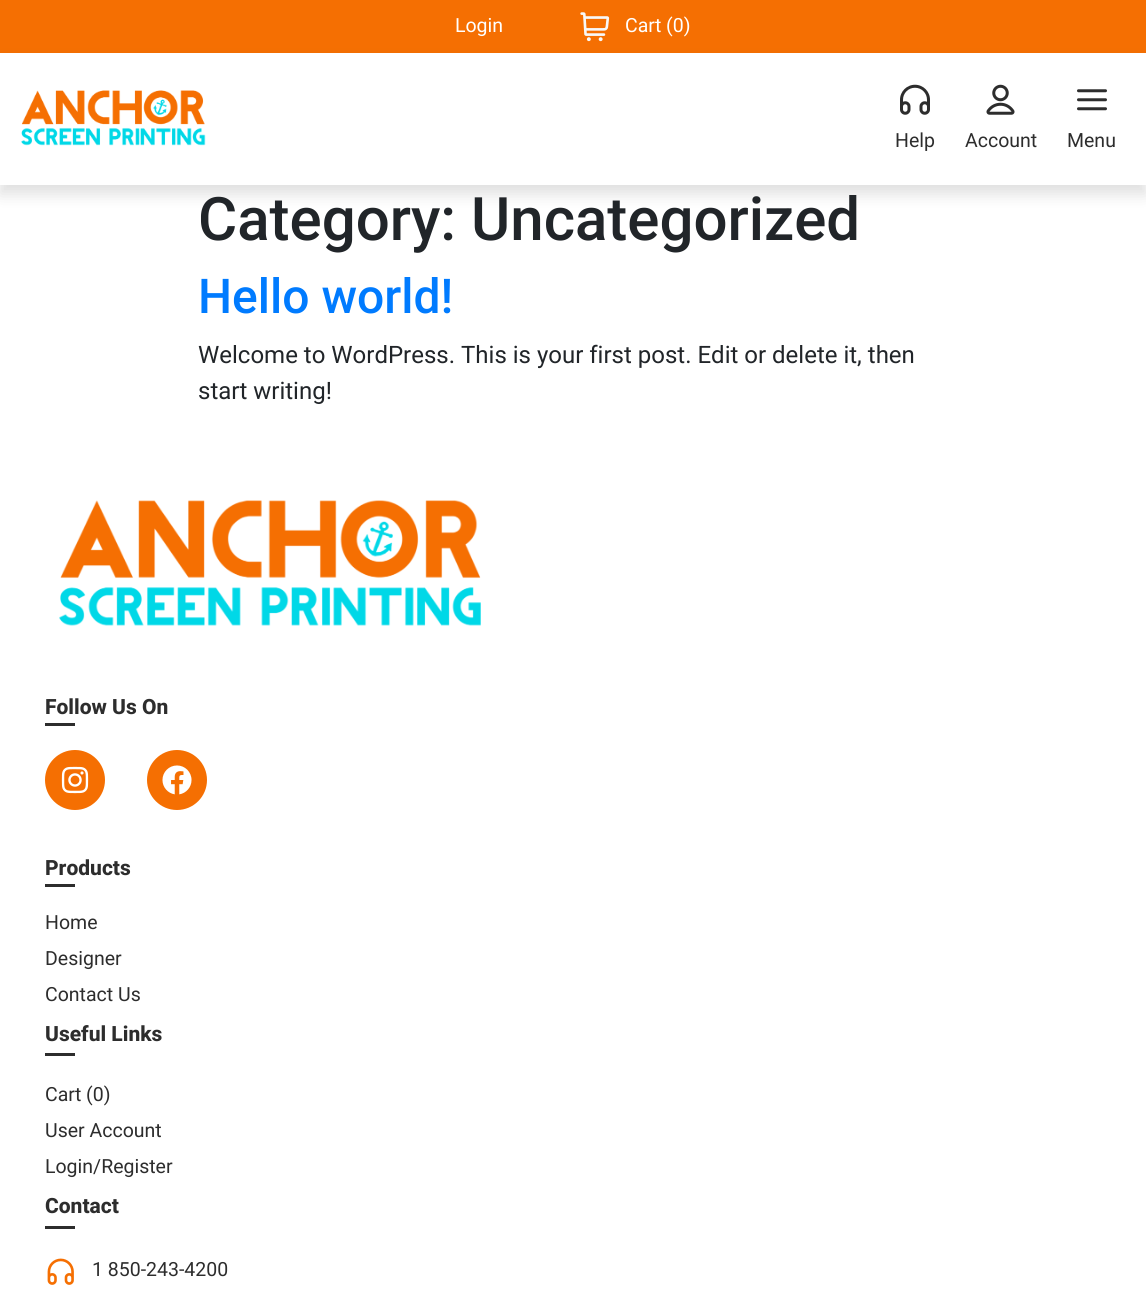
#include <cairo/cairo.h>
#include <math.h>
#include <stddef.h>

typedef struct { double x, y; const char *s; } line_t;
typedef struct { double x, y, w, h; unsigned color; } box_t;
static cairo_t *cr;

static void rgb(unsigned color)
{
	cairo_set_source_rgb(cr, (color >> 16) / 255.0, (color >> 8 & 255) / 255.0, (color & 255) / 255.0);
}

static void rrect(double x, double y, double w, double h, double r)
{
	cairo_new_sub_path(cr);
	cairo_arc(cr, x + w - r, y + h - r, r, 0, M_PI / 2);
	cairo_arc(cr, x + r, y + h - r, r, M_PI / 2, M_PI);
	cairo_arc(cr, x + r, y + r, r, M_PI, 1.5 * M_PI);
	cairo_arc(cr, x + w - r, y + r, r, 1.5 * M_PI, 2 * M_PI);
	cairo_close_path(cr);
}

static void soft_shadow(double x, double y, double w, double h, double r, double blur, double alpha)
{
	cairo_push_group_with_content(cr, CAIRO_CONTENT_ALPHA);
	cairo_set_operator(cr, CAIRO_OPERATOR_SOURCE);
	for (int i = 15; i >= -15 && fmin(w, h) + blur * i / 3 > 0; i -= 2) {
		double e = blur * i / 6;
		cairo_set_source_rgba(cr, 0, 0, 0, alpha * erfc((i - 1) / 8.5) / 2);
		rrect(x - e, y - e, w + 2 * e, h + 2 * e, fmax(0, fmin(r + e + blur * .6, fmin(w, h) / 2 + e)));
		cairo_fill(cr);
	}
	cairo_pattern_t *soft = cairo_pop_group(cr);
	cairo_mask(cr, soft);
	cairo_pattern_destroy(soft);
}

static void image(const char *path, double x, double y, double w, double h)
{
	cairo_surface_t *image = cairo_image_surface_create_from_png(path);
	cairo_save(cr);
	cairo_set_source_surface(cr, image, x, y);
	cairo_rectangle(cr, x, y, w, h);
	cairo_fill(cr);
	cairo_restore(cr);
	cairo_surface_destroy(image);
}

int main(void) {
	cairo_surface_t *surface = cairo_image_surface_create(CAIRO_FORMAT_RGB24, 1146, 1307);
	cr = cairo_create(surface);
	cairo_font_options_t *options = cairo_font_options_create();
	cairo_font_options_set_hint_metrics(options, CAIRO_HINT_METRICS_OFF);
	cairo_font_options_set_hint_style(options, CAIRO_HINT_STYLE_NONE);
	cairo_set_font_options(cr, options);
	cairo_set_miter_limit(cr, 4);
	rgb(0xffffff);
	cairo_paint(cr);
	rgb(0xf56f02);
	cairo_rectangle(cr, 0, 0, 1146, 53);
	cairo_fill(cr);
	image("img/1.png", 580, 12, 30, 30);
	cairo_save(cr);
	cairo_set_fill_rule(cr, CAIRO_FILL_RULE_EVEN_ODD);
	cairo_new_path(cr);
	cairo_move_to(cr, 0, 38);
	cairo_line_to(cr, 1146, 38);
	cairo_line_to(cr, 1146, 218);
	cairo_line_to(cr, 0, 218);
	cairo_close_path(cr);
	cairo_move_to(cr, 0, 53);
	cairo_line_to(cr, 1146, 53);
	cairo_line_to(cr, 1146, 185);
	cairo_line_to(cr, 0, 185);
	cairo_close_path(cr);
	cairo_clip(cr);
	rgb(0x000000);
	soft_shadow(0, 62, 1146, 132, 0, 7.5, 0.13);
	cairo_restore(cr);
	image("img/2.png", 21, 90, 185, 56);
	image("img/3.png", 900, 84, 30, 31);
	image("img/4.png", 986, 84, 29, 31);
	image("img/5.png", 1077, 89, 30, 22);
	image("img/6.png", 59, 500, 422, 126);
	rgb(0x2d2d2d);
	cairo_rectangle(cr, 45, 723, 30, 3);
	cairo_fill(cr);
	rgb(0xf56f02);
	cairo_arc(cr, 75, 780, 30, 0, 2 * M_PI);
	cairo_fill(cr);
	image("img/7.png", 61, 766, 28, 28);
	cairo_arc(cr, 177, 780, 30, 0, 2 * M_PI);
	cairo_fill(cr);
	image("img/8.png", 162, 765, 30, 30);
	{
		static const box_t items[] = {
			{45, 884, 30, 3, 0x2d2d2d},
			{45, 1053, 30, 3, 0x2d2d2d},
			{45, 1226, 30, 3, 0x2d2d2d},
		};
		for (size_t i = 0; i < sizeof items / sizeof *items; i++) {
			rgb(items[i].color);
			cairo_rectangle(cr, items[i].x, items[i].y, items[i].w, items[i].h);
			cairo_fill(cr);
		}
	}
	image("img/9.png", 47, 1258, 27, 27);
	cairo_select_font_face(cr, "Roboto", CAIRO_FONT_SLANT_NORMAL, CAIRO_FONT_WEIGHT_NORMAL);
	cairo_set_font_size(cr, 19.5);
	rgb(0xffffff);
	cairo_move_to(cr, 455, 32);
	cairo_show_text(cr, "Login");
	cairo_move_to(cr, 625, 32);
	cairo_show_text(cr, "Cart (0)");
	rgb(0x2d2d2d);
	{
		static const line_t items[] = {
			{895, 147, "Help"},
			{965, 147, "Account"},
			{1067, 147, "Menu"},
		};
		for (size_t i = 0; i < sizeof items / sizeof *items; i++) {
			cairo_move_to(cr, items[i].x, items[i].y);
			cairo_show_text(cr, items[i].s);
		}
	}
	cairo_select_font_face(cr, "Roboto Medium", CAIRO_FONT_SLANT_NORMAL, CAIRO_FONT_WEIGHT_NORMAL);
	cairo_set_font_size(cr, 60);
	rgb(0x212529);
	cairo_move_to(cr, 198, 240);
	cairo_show_text(cr, "Category: Uncategorized");
	cairo_set_font_size(cr, 48);
	rgb(0x007bff);
	cairo_move_to(cr, 198, 313);
	cairo_show_text(cr, "Hello world!");
	cairo_select_font_face(cr, "Roboto", CAIRO_FONT_SLANT_NORMAL, CAIRO_FONT_WEIGHT_NORMAL);
	cairo_set_font_size(cr, 24);
	rgb(0x212529);
	cairo_move_to(cr, 198, 363);
	cairo_show_text(cr, "Welcome to WordPress. This is your first post. Edit or delete it, then");
	cairo_move_to(cr, 198, 399);
	cairo_show_text(cr, "start writing!");
	cairo_select_font_face(cr, "Roboto ExtraBold", CAIRO_FONT_SLANT_NORMAL, CAIRO_FONT_WEIGHT_NORMAL);
	cairo_set_font_size(cr, 21);
	rgb(0x2d2d2d);
	cairo_move_to(cr, 45, 714);
	cairo_show_text(cr, "Follow Us On");
	cairo_move_to(cr, 45, 875);
	cairo_show_text(cr, "Products");
	cairo_select_font_face(cr, "Roboto", CAIRO_FONT_SLANT_NORMAL, CAIRO_FONT_WEIGHT_NORMAL);
	cairo_set_font_size(cr, 19.5);
	{
		static const line_t items[] = {
			{45, 929, "Home"},
			{45, 965, "Designer"},
			{45, 1001, "Contact Us"},
		};
		for (size_t i = 0; i < sizeof items / sizeof *items; i++) {
			cairo_move_to(cr, items[i].x, items[i].y);
			cairo_show_text(cr, items[i].s);
		}
	}
	cairo_select_font_face(cr, "Roboto ExtraBold", CAIRO_FONT_SLANT_NORMAL, CAIRO_FONT_WEIGHT_NORMAL);
	cairo_set_font_size(cr, 21);
	cairo_move_to(cr, 45, 1041);
	cairo_show_text(cr, "Useful Links");
	cairo_select_font_face(cr, "Roboto", CAIRO_FONT_SLANT_NORMAL, CAIRO_FONT_WEIGHT_NORMAL);
	cairo_set_font_size(cr, 19.5);
	{
		static const line_t items[] = {
			{45, 1101, "Cart (0)"},
			{45, 1137, "User Account"},
			{45, 1173, "Login/Register"},
		};
		for (size_t i = 0; i < sizeof items / sizeof *items; i++) {
			cairo_move_to(cr, items[i].x, items[i].y);
			cairo_show_text(cr, items[i].s);
		}
	}
	cairo_select_font_face(cr, "Roboto ExtraBold", CAIRO_FONT_SLANT_NORMAL, CAIRO_FONT_WEIGHT_NORMAL);
	cairo_set_font_size(cr, 21);
	cairo_move_to(cr, 45, 1213);
	cairo_show_text(cr, "Contact");
	cairo_select_font_face(cr, "Roboto", CAIRO_FONT_SLANT_NORMAL, CAIRO_FONT_WEIGHT_NORMAL);
	cairo_set_font_size(cr, 19.5);
	cairo_move_to(cr, 92, 1276);
	cairo_show_text(cr, "1 850-243-4200");
	cairo_surface_write_to_png(surface, "page.png");
	cairo_font_options_destroy(options);
	cairo_destroy(cr);
	cairo_surface_destroy(surface);
	return 0;
}
